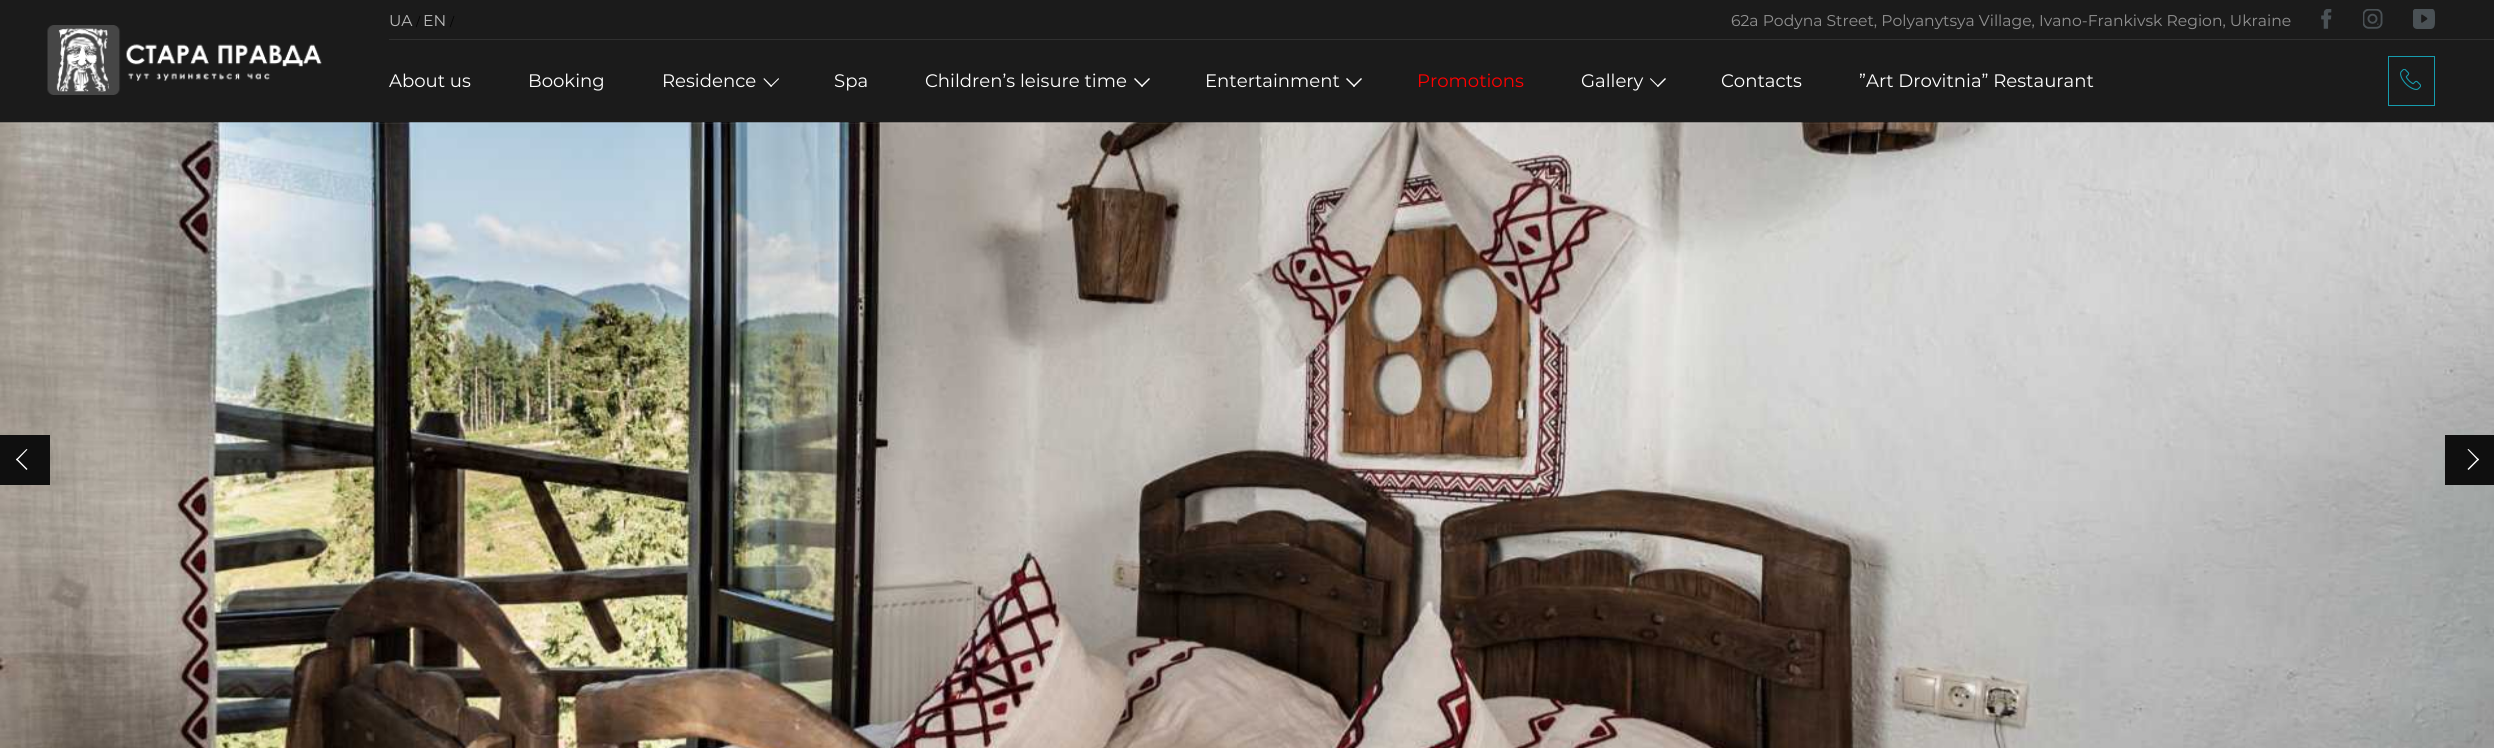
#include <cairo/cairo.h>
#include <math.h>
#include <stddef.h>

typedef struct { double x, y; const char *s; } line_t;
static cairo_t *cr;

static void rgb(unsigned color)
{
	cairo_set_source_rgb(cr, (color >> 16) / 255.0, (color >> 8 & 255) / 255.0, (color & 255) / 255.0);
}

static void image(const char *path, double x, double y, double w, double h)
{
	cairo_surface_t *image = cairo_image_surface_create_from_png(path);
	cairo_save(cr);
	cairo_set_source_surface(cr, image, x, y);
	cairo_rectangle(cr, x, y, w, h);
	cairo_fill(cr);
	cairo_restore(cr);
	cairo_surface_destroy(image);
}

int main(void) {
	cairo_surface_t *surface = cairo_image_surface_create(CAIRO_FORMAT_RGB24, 2494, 748);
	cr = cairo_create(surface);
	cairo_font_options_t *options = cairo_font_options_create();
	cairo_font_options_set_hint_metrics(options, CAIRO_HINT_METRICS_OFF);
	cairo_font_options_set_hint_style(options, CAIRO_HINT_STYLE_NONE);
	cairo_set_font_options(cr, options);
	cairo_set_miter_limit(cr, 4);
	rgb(0xffffff);
	cairo_paint(cr);
	rgb(0x1b1b1b);
	cairo_rectangle(cr, 0, 0, 2494, 123);
	cairo_fill(cr);
	image("img/1.png", 47, 25, 275, 70);
	rgb(0x303030);
	cairo_rectangle(cr, 389, 39, 2105, 1);
	cairo_fill(cr);
	image("img/2.png", 2321, 9, 11, 20);
	image("img/3.png", 2363, 9, 20, 20);
	image("img/4.png", 2413, 9, 22, 20);
	rgb(0xffffff);
	cairo_new_path(cr);
	cairo_move_to(cr, 778.5, 78);
	cairo_line_to(cr, 779, 79);
	cairo_line_to(cr, 771, 87);
	cairo_line_to(cr, 770.5, 86);
	cairo_close_path(cr);
	cairo_fill(cr);
	cairo_new_path(cr);
	cairo_move_to(cr, 764, 78);
	cairo_line_to(cr, 772, 86);
	cairo_line_to(cr, 771, 87);
	cairo_line_to(cr, 763.5, 79);
	cairo_close_path(cr);
	cairo_fill(cr);
	cairo_new_path(cr);
	cairo_move_to(cr, 1149, 78);
	cairo_line_to(cr, 1150, 79);
	cairo_line_to(cr, 1142, 87);
	cairo_line_to(cr, 1141, 86);
	cairo_close_path(cr);
	cairo_fill(cr);
	cairo_new_path(cr);
	cairo_move_to(cr, 1135, 78);
	cairo_line_to(cr, 1143, 86);
	cairo_line_to(cr, 1142, 87);
	cairo_line_to(cr, 1134, 79);
	cairo_close_path(cr);
	cairo_fill(cr);
	cairo_new_path(cr);
	cairo_move_to(cr, 1361, 78);
	cairo_line_to(cr, 1362, 79);
	cairo_line_to(cr, 1354, 87);
	cairo_line_to(cr, 1353, 86);
	cairo_close_path(cr);
	cairo_fill(cr);
	cairo_new_path(cr);
	cairo_move_to(cr, 1347, 78);
	cairo_line_to(cr, 1355, 86);
	cairo_line_to(cr, 1354, 87);
	cairo_line_to(cr, 1346, 79);
	cairo_close_path(cr);
	cairo_fill(cr);
	cairo_new_path(cr);
	cairo_move_to(cr, 1665, 78);
	cairo_line_to(cr, 1666, 79);
	cairo_line_to(cr, 1658, 87);
	cairo_line_to(cr, 1657, 86);
	cairo_close_path(cr);
	cairo_fill(cr);
	cairo_new_path(cr);
	cairo_move_to(cr, 1650.5, 78);
	cairo_line_to(cr, 1658.5, 86);
	cairo_line_to(cr, 1658, 87);
	cairo_line_to(cr, 1650, 79);
	cairo_close_path(cr);
	cairo_fill(cr);
	cairo_rectangle(cr, 2388.5, 56.5, 46, 49);
	rgb(0x169cae);
	cairo_set_line_width(cr, 1);
	cairo_stroke(cr);
	image("img/5.png", 2400, 69, 21, 21);
	image("img/6.png", 0, 122, 2494, 626);
	rgb(0x0f0f0f);
	cairo_rectangle(cr, 0, 435, 50, 50);
	cairo_fill(cr);
	rgb(0xffffff);
	cairo_new_path(cr);
	cairo_move_to(cr, 16, 459.5);
	cairo_line_to(cr, 26.5, 449);
	cairo_line_to(cr, 27.5, 449.5);
	cairo_line_to(cr, 17, 460.5);
	cairo_close_path(cr);
	cairo_fill(cr);
	cairo_new_path(cr);
	cairo_move_to(cr, 16, 459.5);
	cairo_line_to(cr, 17, 458.5);
	cairo_line_to(cr, 27.5, 469);
	cairo_line_to(cr, 26.5, 470);
	cairo_close_path(cr);
	cairo_fill(cr);
	rgb(0x0f0f0f);
	cairo_rectangle(cr, 2445, 435, 49, 50);
	cairo_fill(cr);
	rgb(0xffffff);
	cairo_new_path(cr);
	cairo_move_to(cr, 2468.5, 449);
	cairo_line_to(cr, 2479, 459.5);
	cairo_line_to(cr, 2478, 460.5);
	cairo_line_to(cr, 2467.5, 449.5);
	cairo_close_path(cr);
	cairo_fill(cr);
	cairo_new_path(cr);
	cairo_move_to(cr, 2478, 458.5);
	cairo_line_to(cr, 2479, 459.5);
	cairo_line_to(cr, 2468.5, 470);
	cairo_line_to(cr, 2467.5, 469);
	cairo_close_path(cr);
	cairo_fill(cr);
	cairo_select_font_face(cr, "Montserrat", CAIRO_FONT_SLANT_NORMAL, CAIRO_FONT_WEIGHT_NORMAL);
	cairo_set_font_size(cr, 15.6);
	rgb(0xbbbbbb);
	cairo_move_to(cr, 389, 26);
	cairo_show_text(cr, "UA");
	cairo_set_font_size(cr, 12);
	rgb(0x000000);
	cairo_move_to(cr, 416, 26);
	cairo_show_text(cr, "/");
	cairo_set_font_size(cr, 15.6);
	rgb(0xbbbbbb);
	cairo_move_to(cr, 423, 26);
	cairo_show_text(cr, "EN");
	cairo_set_font_size(cr, 12);
	rgb(0x000000);
	cairo_move_to(cr, 450, 26);
	cairo_show_text(cr, "/");
	cairo_set_font_size(cr, 15.6);
	rgb(0x919191);
	cairo_move_to(cr, 1731, 26);
	cairo_show_text(cr, "62a Podyna Street, Polyanytsya Village, Ivano-Frankivsk Region, Ukraine");
	cairo_set_font_size(cr, 18.1);
	rgb(0xffffff);
	{
		static const line_t items[] = {
			{389, 87, "About us"},
			{528, 87, "Booking"},
			{662, 87, "Residence"},
			{834, 87, "Spa"},
			{925, 87, "Children’s leisure time"},
			{1205, 87, "Entertainment"},
		};
		for (size_t i = 0; i < sizeof items / sizeof *items; i++) {
			cairo_move_to(cr, items[i].x, items[i].y);
			cairo_show_text(cr, items[i].s);
		}
	}
	rgb(0xff0000);
	cairo_move_to(cr, 1417, 87);
	cairo_show_text(cr, "Promotions");
	rgb(0xffffff);
	{
		static const line_t items[] = {
			{1581, 87, "Gallery"},
			{1721, 87, "Contacts"},
			{1859, 87, "”Art Drovitnia” Restaurant"},
		};
		for (size_t i = 0; i < sizeof items / sizeof *items; i++) {
			cairo_move_to(cr, items[i].x, items[i].y);
			cairo_show_text(cr, items[i].s);
		}
	}
	cairo_surface_write_to_png(surface, "page.png");
	cairo_font_options_destroy(options);
	cairo_destroy(cr);
	cairo_surface_destroy(surface);
	return 0;
}
